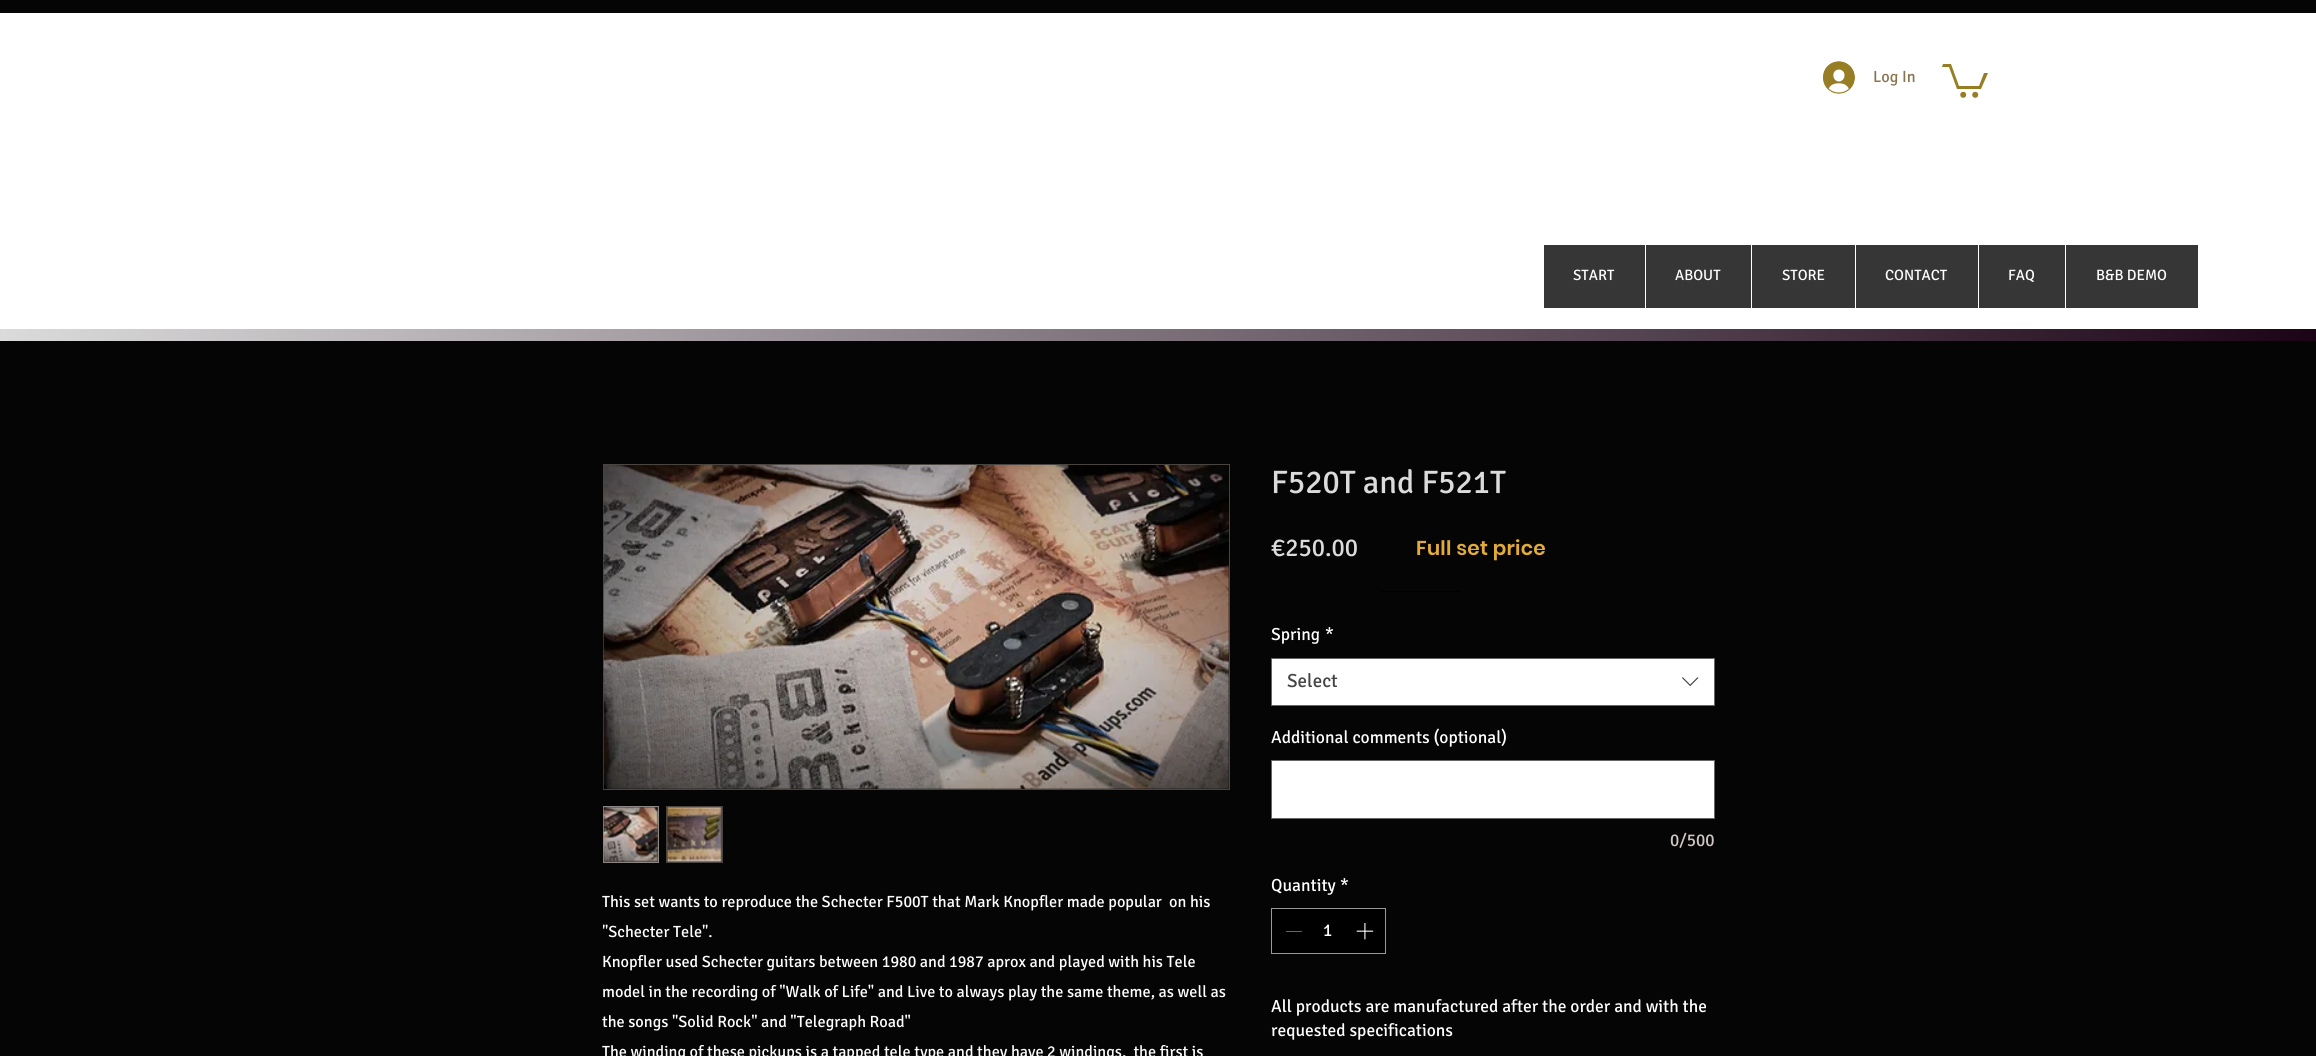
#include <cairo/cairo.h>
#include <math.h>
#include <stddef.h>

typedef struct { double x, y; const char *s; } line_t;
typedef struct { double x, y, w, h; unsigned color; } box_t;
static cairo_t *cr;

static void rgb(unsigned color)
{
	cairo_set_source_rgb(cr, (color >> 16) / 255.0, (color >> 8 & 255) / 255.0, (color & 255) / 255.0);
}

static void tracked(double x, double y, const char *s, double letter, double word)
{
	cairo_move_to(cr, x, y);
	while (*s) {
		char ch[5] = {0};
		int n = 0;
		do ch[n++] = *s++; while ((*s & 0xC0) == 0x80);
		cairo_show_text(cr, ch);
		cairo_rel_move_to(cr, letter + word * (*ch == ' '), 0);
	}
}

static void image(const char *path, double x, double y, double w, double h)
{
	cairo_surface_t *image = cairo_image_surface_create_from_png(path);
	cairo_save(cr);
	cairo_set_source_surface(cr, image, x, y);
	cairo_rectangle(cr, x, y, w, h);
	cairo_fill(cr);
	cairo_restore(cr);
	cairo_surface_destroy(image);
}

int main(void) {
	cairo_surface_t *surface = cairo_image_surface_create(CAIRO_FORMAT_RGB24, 2316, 1056);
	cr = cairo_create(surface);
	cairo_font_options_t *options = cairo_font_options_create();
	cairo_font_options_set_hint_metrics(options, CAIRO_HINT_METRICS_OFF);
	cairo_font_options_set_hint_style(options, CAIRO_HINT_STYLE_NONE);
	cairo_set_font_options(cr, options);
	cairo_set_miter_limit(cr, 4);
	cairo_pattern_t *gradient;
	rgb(0x060505);
	cairo_paint(cr);
	rgb(0xffffff);
	cairo_rectangle(cr, 0, 13, 2316, 316);
	cairo_fill(cr);
	image("img/1.png", 1823, 61, 32, 33);
	rgb(0x977e25);
	cairo_new_path(cr);
	cairo_move_to(cr, 1988, 73);
	cairo_line_to(cr, 1981, 89);
	cairo_line_to(cr, 1957, 89);
	cairo_line_to(cr, 1949, 67);
	cairo_line_to(cr, 1942, 67);
	cairo_line_to(cr, 1943, 64);
	cairo_line_to(cr, 1951, 64);
	cairo_line_to(cr, 1959, 86);
	cairo_line_to(cr, 1979, 86);
	cairo_line_to(cr, 1984, 73);
	cairo_fill(cr);
	cairo_arc(cr, 1975.2, 94.8, 3, 0, 2 * M_PI);
	cairo_fill(cr);
	cairo_arc(cr, 1963.2, 94.8, 3, 0, 2 * M_PI);
	cairo_fill(cr);
	{
		static const box_t items[] = {
			{1544, 245, 654, 63, 0x363636},
			{1645, 245, 1, 63, 0xffffff},
			{1751, 245, 1, 63, 0xffffff},
			{1855, 245, 1, 63, 0xffffff},
			{1978, 245, 1, 63, 0xffffff},
			{2065, 245, 1, 63, 0xffffff},
		};
		for (size_t i = 0; i < sizeof items / sizeof *items; i++) {
			rgb(items[i].color);
			cairo_rectangle(cr, items[i].x, items[i].y, items[i].w, items[i].h);
			cairo_fill(cr);
		}
	}
	gradient = cairo_pattern_create_linear(0, 335, 2316, 335);
	cairo_pattern_add_color_stop_rgba(gradient, 0, 0.859, 0.859, 0.859, 1);
	cairo_pattern_add_color_stop_rgba(gradient, 1, 0.11, 0.016, 0.09, 1);
	cairo_set_source(cr, gradient);
	cairo_pattern_destroy(gradient);
	cairo_rectangle(cr, 0, 329, 2316, 12);
	cairo_fill(cr);
	cairo_rectangle(cr, 603.5, 464.5, 626, 325);
	rgb(0x494440);
	cairo_set_line_width(cr, 1);
	cairo_stroke(cr);
	image("img/2.png", 603, 465, 626, 324);
	cairo_rectangle(cr, 603.5, 806.5, 55, 56);
	cairo_fill_preserve(cr);
	rgb(0x8b8683);
	cairo_stroke(cr);
	image("img/3.png", 603, 807, 55, 55);
	rgb(0x494440);
	cairo_rectangle(cr, 666, 806, 57, 57);
	cairo_fill(cr);
	image("img/4.png", 667, 807, 55, 55);
	rgb(0x000000);
	cairo_rectangle(cr, 1381, 591, 79, 1);
	cairo_fill(cr);
	rgb(0xffffff);
	cairo_rectangle(cr, 1271.5, 658.5, 443, 47);
	cairo_fill_preserve(cr);
	rgb(0x666666);
	cairo_stroke(cr);
	image("img/5.png", 1682, 677, 17, 10);
	rgb(0xffffff);
	cairo_rectangle(cr, 1271.5, 760.5, 443, 58);
	cairo_fill_preserve(cr);
	rgb(0x666666);
	cairo_stroke(cr);
	rgb(0x000000);
	cairo_rectangle(cr, 1271.5, 908.5, 114, 45);
	cairo_fill_preserve(cr);
	rgb(0x999999);
	cairo_stroke(cr);
	rgb(0x646464);
	cairo_rectangle(cr, 1286, 931, 16, 1);
	cairo_fill(cr);
	image("img/6.png", 1356, 923, 18, 17);
	cairo_select_font_face(cr, "Signika", CAIRO_FONT_SLANT_NORMAL, CAIRO_FONT_WEIGHT_NORMAL);
	cairo_set_font_size(cr, 16.25);
	rgb(0x89744d);
	cairo_move_to(cr, 1873, 82);
	cairo_show_text(cr, "Log In");
	cairo_set_font_size(cr, 15);
	rgb(0xffffff);
	{
		static const line_t items[] = {
			{1573, 280, "START"},
			{1675, 280, "ABOUT"},
			{1782, 280, "STORE"},
			{1885, 280, "CONTACT"},
			{2008, 280, "FAQ"},
			{2096, 280, "B&B DEMO"},
		};
		for (size_t i = 0; i < sizeof items / sizeof *items; i++) {
			cairo_move_to(cr, items[i].x, items[i].y);
			cairo_show_text(cr, items[i].s);
		}
	}
	cairo_set_font_size(cr, 16.25);
	cairo_move_to(cr, 602, 907);
	cairo_show_text(cr, "This set wants to reproduce the Schecter F500T that Mark Knopfler made popular  on his");
	cairo_save(cr);
	cairo_rectangle(cr, 603, 888, 625, 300);
	cairo_clip(cr);
	cairo_move_to(cr, 602, 937);
	cairo_show_text(cr, "\"Schecter Tele\".");
	cairo_restore(cr);
	{
		static const line_t items[] = {
			{602, 967, "Knopfler used Schecter guitars between 1980 and 1987 aprox and played with his Tele"},
			{602, 997, "model in the recording of \"Walk of Life\" and Live to always play the same theme, as well as"},
			{602, 1027, "the songs \"Solid Rock\" and \"Telegraph Road\""},
			{602, 1057, "The winding of these pickups is a tapped tele type and they have 2 windings,  the first is"},
		};
		for (size_t i = 0; i < sizeof items / sizeof *items; i++) {
			cairo_move_to(cr, items[i].x, items[i].y);
			cairo_show_text(cr, items[i].s);
		}
	}
	cairo_set_font_size(cr, 32.5);
	rgb(0xdbdbdb);
	cairo_move_to(cr, 1271, 493);
	cairo_show_text(cr, "F520T and F521T");
	cairo_set_font_size(cr, 25);
	cairo_move_to(cr, 1271, 556);
	cairo_show_text(cr, "€250.00");
	cairo_set_font_size(cr, 17.5);
	rgb(0xffffff);
	cairo_move_to(cr, 1271, 640);
	cairo_show_text(cr, "Spring");
	cairo_move_to(cr, 1325, 640);
	cairo_show_text(cr, "*");
	cairo_set_font_size(cr, 19);
	rgb(0x444444);
	cairo_move_to(cr, 1287, 687);
	cairo_show_text(cr, "Select");
	cairo_set_font_size(cr, 17.5);
	rgb(0xffffff);
	cairo_move_to(cr, 1271, 743);
	cairo_show_text(cr, "Additional comments (optional)");
	rgb(0xcfc7c2);
	cairo_move_to(cr, 1670, 846);
	cairo_show_text(cr, "0/500");
	rgb(0xffffff);
	{
		static const line_t items[] = {
			{1271, 891, "Quantity"},
			{1340, 891, "*"},
			{1323, 936, "1"},
			{1271, 1012, "All products are manufactured after the order and with the"},
			{1271, 1036, "requested specifications"},
		};
		for (size_t i = 0; i < sizeof items / sizeof *items; i++) {
			cairo_move_to(cr, items[i].x, items[i].y);
			cairo_show_text(cr, items[i].s);
		}
	}
	cairo_select_font_face(cr, "Poppins SemiBold", CAIRO_FONT_SLANT_NORMAL, CAIRO_FONT_WEIGHT_NORMAL);
	cairo_set_font_size(cr, 20);
	rgb(0xe2ac38);
	tracked(1416, 555, "Full set price", 0.25, 0);
	cairo_surface_write_to_png(surface, "page.png");
	cairo_font_options_destroy(options);
	cairo_destroy(cr);
	cairo_surface_destroy(surface);
	return 0;
}
